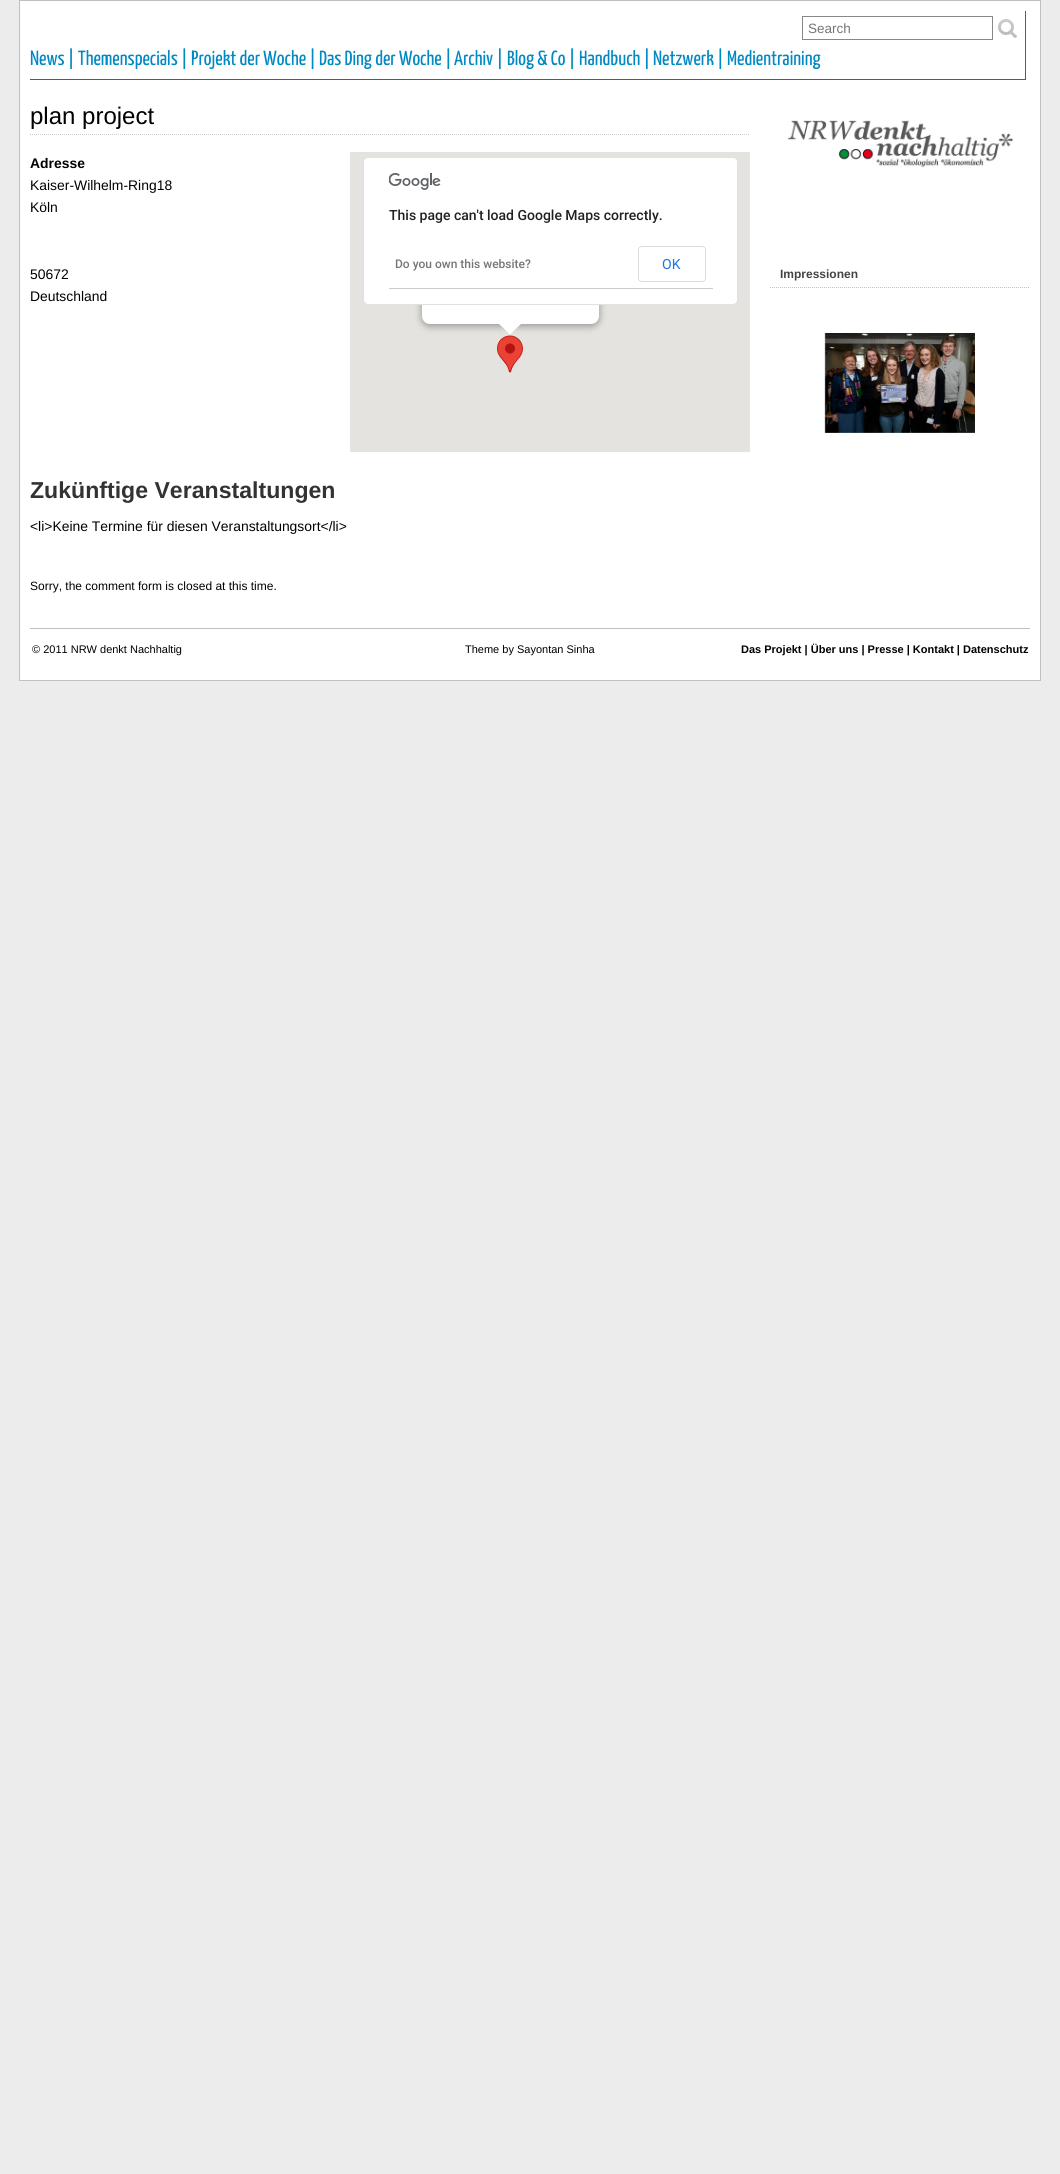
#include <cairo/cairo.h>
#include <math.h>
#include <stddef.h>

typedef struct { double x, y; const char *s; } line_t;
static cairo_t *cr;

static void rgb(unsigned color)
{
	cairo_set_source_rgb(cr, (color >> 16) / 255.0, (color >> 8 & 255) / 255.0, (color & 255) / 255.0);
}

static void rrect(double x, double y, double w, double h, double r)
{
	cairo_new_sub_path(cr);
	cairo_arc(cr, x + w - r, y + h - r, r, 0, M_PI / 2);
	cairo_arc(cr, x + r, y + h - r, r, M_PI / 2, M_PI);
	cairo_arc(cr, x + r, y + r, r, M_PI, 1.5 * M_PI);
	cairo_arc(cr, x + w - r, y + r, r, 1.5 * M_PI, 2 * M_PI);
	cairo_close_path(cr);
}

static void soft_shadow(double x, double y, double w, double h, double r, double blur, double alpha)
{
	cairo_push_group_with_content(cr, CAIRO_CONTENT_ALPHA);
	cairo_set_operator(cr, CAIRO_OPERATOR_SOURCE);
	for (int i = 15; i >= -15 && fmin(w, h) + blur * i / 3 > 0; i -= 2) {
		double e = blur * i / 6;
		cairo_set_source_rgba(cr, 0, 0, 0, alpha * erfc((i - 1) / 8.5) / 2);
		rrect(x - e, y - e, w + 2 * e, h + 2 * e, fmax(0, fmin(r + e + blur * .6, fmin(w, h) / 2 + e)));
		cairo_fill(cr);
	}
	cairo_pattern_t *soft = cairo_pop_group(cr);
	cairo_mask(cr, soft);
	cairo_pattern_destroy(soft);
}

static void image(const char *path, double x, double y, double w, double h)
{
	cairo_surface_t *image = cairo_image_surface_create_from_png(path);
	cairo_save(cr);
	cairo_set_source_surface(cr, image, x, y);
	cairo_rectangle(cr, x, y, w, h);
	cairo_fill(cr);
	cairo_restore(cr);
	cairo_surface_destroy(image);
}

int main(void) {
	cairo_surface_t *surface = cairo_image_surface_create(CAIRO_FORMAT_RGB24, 1060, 2174);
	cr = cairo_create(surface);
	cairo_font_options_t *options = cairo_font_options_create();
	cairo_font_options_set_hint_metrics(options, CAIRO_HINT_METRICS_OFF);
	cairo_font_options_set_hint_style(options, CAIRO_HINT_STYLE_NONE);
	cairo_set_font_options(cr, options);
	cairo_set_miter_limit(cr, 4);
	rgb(0xececec);
	cairo_paint(cr);
	rgb(0xffffff);
	cairo_rectangle(cr, 19.5, 0.5, 1021, 680);
	cairo_fill_preserve(cr);
	rgb(0xc0c0c0);
	cairo_set_line_width(cr, 1);
	cairo_stroke(cr);
	rgb(0x009037);
	cairo_rectangle(cr, 1025, 11, 1, 69);
	cairo_fill(cr);
	cairo_rectangle(cr, 30, 79, 996, 1);
	cairo_fill(cr);
	cairo_rectangle(cr, 802.5, 16.5, 190, 23);
	rgb(0x888888);
	cairo_stroke(cr);
	image("img/1.png", 998, 19, 19, 19);
	cairo_new_path(cr);
	cairo_move_to(cr, 30, 134.5);
	cairo_line_to(cr, 750, 134.5);
	rgb(0xcccccc);
	cairo_set_dash(cr, (double[]){1, 1}, 2, 0);
	cairo_stroke(cr);
	rgb(0xe5e3df);
	cairo_rectangle(cr, 350, 152, 400, 300);
	cairo_fill(cr);
	image("img/2.png", 497, 335, 26, 38);
	rgb(0x000000);
	soft_shadow(421, 213, 179, 114, 9, 3.5, 0.3);
	rgb(0xffffff);
	rrect(422, 212, 177, 112, 8);
	cairo_fill(cr);
	cairo_new_path(cr);
	cairo_move_to(cr, 498, 323);
	cairo_line_to(cr, 510, 334.5);
	cairo_line_to(cr, 522, 323);
	cairo_close_path(cr);
	cairo_fill(cr);
	rrect(363, 157, 375, 148, 5);
	cairo_fill(cr);
	rrect(363.5, 157.5, 374, 147, 4.5);
	cairo_set_source_rgba(cr, 0, 0, 0, 0.12);
	cairo_set_dash(cr, NULL, 0, 0);
	cairo_stroke(cr);
	image("img/3.png", 389, 173, 52, 17);
	rgb(0xcccccc);
	cairo_rectangle(cr, 389, 288, 324, 1);
	cairo_fill(cr);
	rrect(638.5, 246.5, 67, 35, 3.5);
	rgb(0xdadce0);
	cairo_stroke(cr);
	image("img/4.png", 787, 120, 227, 48);
	cairo_new_path(cr);
	cairo_move_to(cr, 770, 287.5);
	cairo_line_to(cr, 1030, 287.5);
	rgb(0xc0c0c0);
	cairo_set_dash(cr, (double[]){1, 1}, 2, 0);
	cairo_stroke(cr);
	image("img/5.png", 824, 333, 151, 100);
	cairo_rectangle(cr, 30, 628, 1000, 1);
	cairo_fill(cr);
	cairo_select_font_face(cr, "Liberation Sans", CAIRO_FONT_SLANT_NORMAL, CAIRO_FONT_WEIGHT_NORMAL);
	cairo_set_font_size(cr, 13.5);
	rgb(0x757575);
	cairo_move_to(cr, 808, 33);
	cairo_show_text(cr, "Search");
	cairo_select_font_face(cr, "Yanone Kaffeesatz ExtraLight", CAIRO_FONT_SLANT_NORMAL, CAIRO_FONT_WEIGHT_NORMAL);
	cairo_set_font_size(cr, 20.5);
	rgb(0x0089c3);
	{
		static const line_t items[] = {
			{30, 65, "News |"},
			{78, 65, "Themenspecials |"},
			{191, 65, "Projekt der Woche |"},
			{319, 65, "Das Ding der Woche |"},
			{454, 65, "Archiv |"},
			{507, 65, "Blog & Co |"},
			{579, 65, "Handbuch |"},
			{653, 65, "Netzwerk |"},
			{727, 65, "Medientraining"},
		};
		for (size_t i = 0; i < sizeof items / sizeof *items; i++) {
			cairo_move_to(cr, items[i].x, items[i].y);
			cairo_show_text(cr, items[i].s);
		}
	}
	cairo_select_font_face(cr, "Liberation Sans", CAIRO_FONT_SLANT_NORMAL, CAIRO_FONT_WEIGHT_NORMAL);
	cairo_set_font_size(cr, 24);
	rgb(0x000000);
	cairo_move_to(cr, 30, 124);
	cairo_show_text(cr, "plan project");
	cairo_select_font_face(cr, "Liberation Sans", CAIRO_FONT_SLANT_NORMAL, CAIRO_FONT_WEIGHT_BOLD);
	cairo_set_font_size(cr, 13.9);
	cairo_move_to(cr, 30, 168);
	cairo_show_text(cr, "Adresse");
	cairo_select_font_face(cr, "Liberation Sans", CAIRO_FONT_SLANT_NORMAL, CAIRO_FONT_WEIGHT_NORMAL);
	{
		static const line_t items[] = {
			{30, 190, "Kaiser-Wilhelm-Ring18"},
			{30, 212, "Köln"},
			{30, 279, "50672"},
			{30, 301, "Deutschland"},
		};
		for (size_t i = 0; i < sizeof items / sizeof *items; i++) {
			cairo_move_to(cr, items[i].x, items[i].y);
			cairo_show_text(cr, items[i].s);
		}
	}
	cairo_select_font_face(cr, "Roboto Medium", CAIRO_FONT_SLANT_NORMAL, CAIRO_FONT_WEIGHT_NORMAL);
	cairo_set_font_size(cr, 14);
	rgb(0x212121);
	cairo_move_to(cr, 389, 220);
	cairo_show_text(cr, "This page can't load Google Maps correctly.");
	cairo_set_font_size(cr, 12);
	rgb(0x757575);
	cairo_move_to(cr, 395, 268);
	cairo_show_text(cr, "Do you own this website?");
	cairo_select_font_face(cr, "Roboto", CAIRO_FONT_SLANT_NORMAL, CAIRO_FONT_WEIGHT_NORMAL);
	cairo_set_font_size(cr, 14);
	rgb(0x1a73e8);
	cairo_move_to(cr, 662, 269);
	cairo_show_text(cr, "OK");
	cairo_select_font_face(cr, "Liberation Sans", CAIRO_FONT_SLANT_NORMAL, CAIRO_FONT_WEIGHT_BOLD);
	cairo_set_font_size(cr, 23.1);
	rgb(0x333333);
	cairo_move_to(cr, 30, 498);
	cairo_show_text(cr, "Zukünftige Veranstaltungen");
	cairo_select_font_face(cr, "Liberation Sans", CAIRO_FONT_SLANT_NORMAL, CAIRO_FONT_WEIGHT_NORMAL);
	cairo_set_font_size(cr, 13.9);
	rgb(0x000000);
	cairo_move_to(cr, 30, 531);
	cairo_show_text(cr, "<li>Keine Termine für diesen Veranstaltungsort</li>");
	cairo_set_font_size(cr, 12);
	cairo_move_to(cr, 30, 590);
	cairo_show_text(cr, "Sorry, the comment form is closed at this time.");
	cairo_select_font_face(cr, "Liberation Sans", CAIRO_FONT_SLANT_NORMAL, CAIRO_FONT_WEIGHT_BOLD);
	rgb(0x444444);
	cairo_move_to(cr, 780, 278);
	cairo_show_text(cr, "Impressionen");
	cairo_select_font_face(cr, "Liberation Sans", CAIRO_FONT_SLANT_NORMAL, CAIRO_FONT_WEIGHT_NORMAL);
	cairo_set_font_size(cr, 11);
	rgb(0x000000);
	cairo_move_to(cr, 32, 653);
	cairo_show_text(cr, "© 2011 NRW denkt Nachhaltig");
	cairo_move_to(cr, 465, 653);
	cairo_show_text(cr, "Theme by Sayontan Sinha");
	cairo_select_font_face(cr, "Liberation Sans", CAIRO_FONT_SLANT_NORMAL, CAIRO_FONT_WEIGHT_BOLD);
	cairo_move_to(cr, 741, 653);
	cairo_show_text(cr, "Das Projekt | Über uns | Presse | Kontakt | Datenschutz");
	cairo_surface_write_to_png(surface, "page.png");
	cairo_font_options_destroy(options);
	cairo_destroy(cr);
	cairo_surface_destroy(surface);
	return 0;
}
